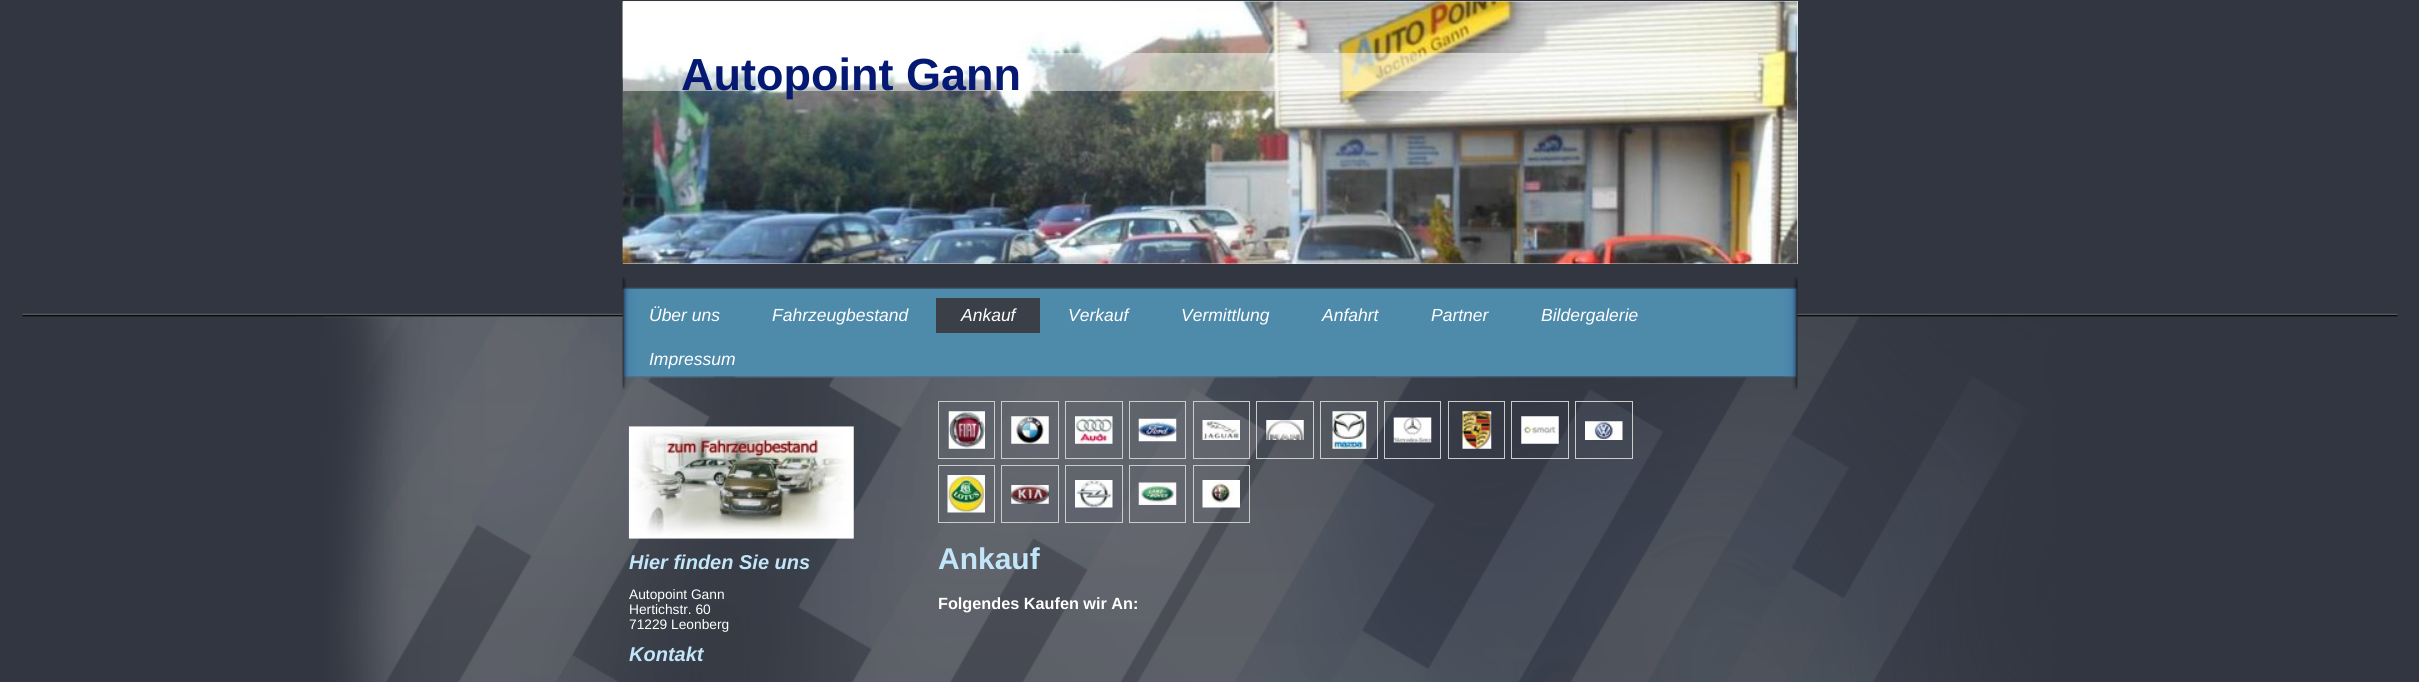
#include <cairo/cairo.h>
#include <math.h>
#include <stddef.h>

typedef struct { double x, y; const char *s; } line_t;
static cairo_t *cr;

static void rgb(unsigned color)
{
	cairo_set_source_rgb(cr, (color >> 16) / 255.0, (color >> 8 & 255) / 255.0, (color & 255) / 255.0);
}

static void image(const char *path, double x, double y, double w, double h)
{
	cairo_surface_t *image = cairo_image_surface_create_from_png(path);
	cairo_save(cr);
	cairo_set_source_surface(cr, image, x, y);
	cairo_rectangle(cr, x, y, w, h);
	cairo_fill(cr);
	cairo_restore(cr);
	cairo_surface_destroy(image);
}

int main(void) {
	cairo_surface_t *surface = cairo_image_surface_create(CAIRO_FORMAT_RGB24, 2419, 682);
	cr = cairo_create(surface);
	cairo_font_options_t *options = cairo_font_options_create();
	cairo_font_options_set_hint_metrics(options, CAIRO_HINT_METRICS_OFF);
	cairo_font_options_set_hint_style(options, CAIRO_HINT_STYLE_NONE);
	cairo_set_font_options(cr, options);
	cairo_set_miter_limit(cr, 4);
	rgb(0x323640);
	cairo_paint(cr);
	image("img/1.png", 22, 313, 2376, 369);
	image("img/2.png", 622, 1, 1, 263);
	rgb(0xeeeeee);
	cairo_rectangle(cr, 623, 1, 1175, 263);
	cairo_fill(cr);
	image("img/3.png", 622, 1, 1176, 263);
	cairo_set_source_rgba(cr, 1, 1, 1, 0.5);
	cairo_rectangle(cr, 623, 53, 1135, 38);
	cairo_fill(cr);
	image("img/4.png", 622, 277, 1176, 12);
	image("img/6.png", 622, 376, 1176, 14);
	image("img/5.png", 622, 288, 1176, 89);
	rgb(0x3b3f48);
	cairo_rectangle(cr, 936, 298, 104, 35);
	cairo_fill(cr);
	image("img/7.png", 628, 426, 226, 113);
	cairo_rectangle(cr, 938.5, 401.5, 56, 57);
	rgb(0xcccccc);
	cairo_set_line_width(cr, 1);
	cairo_stroke(cr);
	image("img/8.png", 948, 411, 37, 38);
	cairo_rectangle(cr, 1001.5, 401.5, 57, 57);
	cairo_stroke(cr);
	image("img/9.png", 1011, 416, 38, 28);
	cairo_rectangle(cr, 1065.5, 401.5, 57, 57);
	cairo_stroke(cr);
	image("img/10.png", 1075, 416, 38, 28);
	cairo_rectangle(cr, 1129.5, 401.5, 56, 57);
	cairo_stroke(cr);
	image("img/11.png", 1138, 418, 39, 24);
	cairo_rectangle(cr, 1193.5, 401.5, 56, 57);
	cairo_stroke(cr);
	image("img/12.png", 1202, 420, 38, 20);
	cairo_rectangle(cr, 1256.5, 401.5, 57, 57);
	cairo_stroke(cr);
	image("img/13.png", 1266, 420, 38, 20);
	cairo_rectangle(cr, 1320.5, 401.5, 57, 57);
	cairo_stroke(cr);
	image("img/14.png", 1332, 411, 35, 38);
	cairo_rectangle(cr, 1384.5, 401.5, 56, 57);
	cairo_stroke(cr);
	image("img/15.png", 1393, 417, 39, 26);
	cairo_rectangle(cr, 1448.5, 401.5, 56, 57);
	cairo_stroke(cr);
	image("img/16.png", 1462, 411, 30, 38);
	cairo_rectangle(cr, 1511.5, 401.5, 57, 57);
	cairo_stroke(cr);
	image("img/17.png", 1521, 416, 38, 28);
	cairo_rectangle(cr, 1575.5, 401.5, 57, 57);
	cairo_stroke(cr);
	image("img/18.png", 1585, 421, 38, 19);
	cairo_rectangle(cr, 938.5, 465.5, 56, 57);
	cairo_stroke(cr);
	image("img/19.png", 947, 475, 38, 38);
	cairo_rectangle(cr, 1001.5, 465.5, 57, 57);
	cairo_stroke(cr);
	image("img/20.png", 1011, 485, 38, 19);
	cairo_rectangle(cr, 1065.5, 465.5, 57, 57);
	cairo_stroke(cr);
	image("img/21.png", 1075, 480, 38, 28);
	cairo_rectangle(cr, 1129.5, 465.5, 56, 57);
	cairo_stroke(cr);
	image("img/22.png", 1138, 482, 39, 23);
	cairo_rectangle(cr, 1193.5, 465.5, 56, 57);
	cairo_stroke(cr);
	image("img/23.png", 1202, 480, 38, 28);
	cairo_select_font_face(cr, "Liberation Sans", CAIRO_FONT_SLANT_NORMAL, CAIRO_FONT_WEIGHT_BOLD);
	cairo_set_font_size(cr, 45);
	rgb(0x051972);
	cairo_move_to(cr, 681, 90);
	cairo_show_text(cr, "Autopoint Gann");
	cairo_select_font_face(cr, "Liberation Sans", CAIRO_FONT_SLANT_ITALIC, CAIRO_FONT_WEIGHT_NORMAL);
	cairo_set_font_size(cr, 17.5);
	rgb(0xffffff);
	{
		static const line_t items[] = {
			{649, 321, "Über uns"},
			{772, 321, "Fahrzeugbestand"},
			{961, 321, "Ankauf"},
			{1068, 321, "Verkauf"},
			{1181, 321, "Vermittlung"},
			{1322, 321, "Anfahrt"},
			{1431, 321, "Partner"},
			{1541, 321, "Bildergalerie"},
			{649, 365, "Impressum"},
		};
		for (size_t i = 0; i < sizeof items / sizeof *items; i++) {
			cairo_move_to(cr, items[i].x, items[i].y);
			cairo_show_text(cr, items[i].s);
		}
	}
	cairo_select_font_face(cr, "Liberation Sans", CAIRO_FONT_SLANT_ITALIC, CAIRO_FONT_WEIGHT_BOLD);
	cairo_set_font_size(cr, 20);
	rgb(0xc2e6f9);
	cairo_move_to(cr, 629, 569);
	cairo_show_text(cr, "Hier finden Sie uns");
	cairo_select_font_face(cr, "Liberation Sans", CAIRO_FONT_SLANT_NORMAL, CAIRO_FONT_WEIGHT_NORMAL);
	cairo_set_font_size(cr, 13.75);
	rgb(0xffffff);
	{
		static const line_t items[] = {
			{629, 599, "Autopoint Gann"},
			{629, 614, "Hertichstr. 60"},
			{629, 629, "71229 Leonberg"},
		};
		for (size_t i = 0; i < sizeof items / sizeof *items; i++) {
			cairo_move_to(cr, items[i].x, items[i].y);
			cairo_show_text(cr, items[i].s);
		}
	}
	cairo_select_font_face(cr, "Liberation Sans", CAIRO_FONT_SLANT_ITALIC, CAIRO_FONT_WEIGHT_BOLD);
	cairo_set_font_size(cr, 20);
	rgb(0xc2e6f9);
	cairo_move_to(cr, 629, 661);
	cairo_show_text(cr, "Kontakt");
	cairo_select_font_face(cr, "Liberation Sans", CAIRO_FONT_SLANT_NORMAL, CAIRO_FONT_WEIGHT_BOLD);
	cairo_set_font_size(cr, 30);
	cairo_move_to(cr, 938, 569);
	cairo_show_text(cr, "Ankauf");
	cairo_set_font_size(cr, 16.25);
	rgb(0xffffff);
	cairo_move_to(cr, 938, 609);
	cairo_show_text(cr, "Folgendes Kaufen wir An:");
	cairo_surface_write_to_png(surface, "page.png");
	cairo_font_options_destroy(options);
	cairo_destroy(cr);
	cairo_surface_destroy(surface);
	return 0;
}
